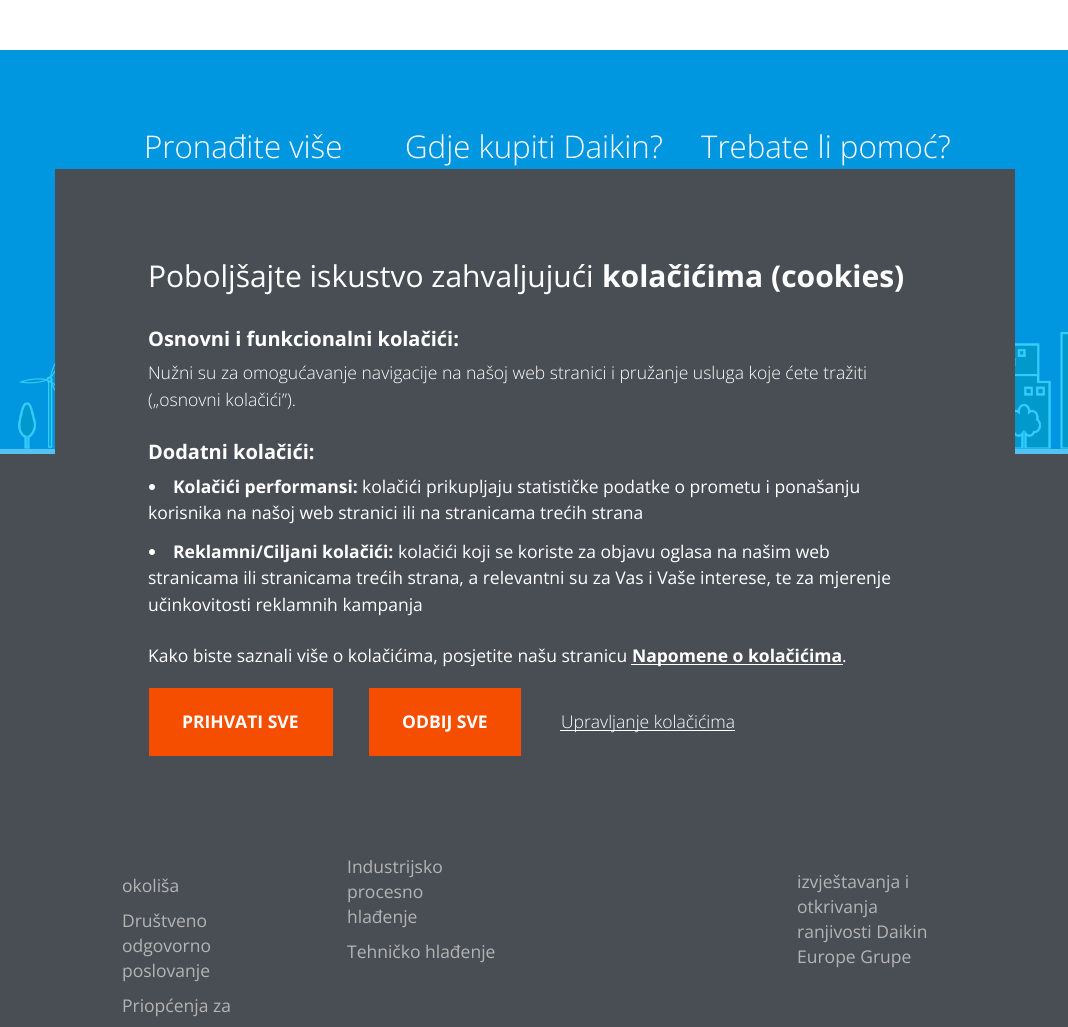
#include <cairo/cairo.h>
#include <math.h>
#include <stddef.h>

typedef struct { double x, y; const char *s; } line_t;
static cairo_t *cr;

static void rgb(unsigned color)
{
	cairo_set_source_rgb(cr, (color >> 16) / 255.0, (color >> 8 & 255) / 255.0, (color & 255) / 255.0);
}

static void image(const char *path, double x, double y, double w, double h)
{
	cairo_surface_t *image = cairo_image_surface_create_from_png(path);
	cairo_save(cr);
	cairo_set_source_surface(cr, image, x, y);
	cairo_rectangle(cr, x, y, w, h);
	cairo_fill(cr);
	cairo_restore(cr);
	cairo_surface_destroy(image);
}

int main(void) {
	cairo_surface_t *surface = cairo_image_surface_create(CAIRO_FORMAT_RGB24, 1068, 1027);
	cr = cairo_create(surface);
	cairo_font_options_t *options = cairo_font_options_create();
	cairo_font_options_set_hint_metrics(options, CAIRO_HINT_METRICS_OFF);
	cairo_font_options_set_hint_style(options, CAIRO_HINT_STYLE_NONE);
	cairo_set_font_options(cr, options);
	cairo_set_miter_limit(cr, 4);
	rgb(0xffffff);
	cairo_paint(cr);
	rgb(0x0097e0);
	cairo_rectangle(cr, 0, 50, 1068, 399);
	cairo_fill(cr);
	rgb(0x0099cc);
	cairo_rectangle(cr, 49, 382, 2, 65);
	cairo_fill(cr);
	cairo_save(cr);
	cairo_rectangle(cr, 48, 380, 5, 69);
	cairo_clip(cr);
	cairo_new_path(cr);
	cairo_move_to(cr, 48.5, 381.5);
	cairo_line_to(cr, 51.5, 381.5);
	cairo_line_to(cr, 51.5, 447);
	cairo_line_to(cr, 48.5, 447);
	cairo_close_path(cr);
	rgb(0x33ccff);
	cairo_set_line_width(cr, 1.5);
	cairo_stroke(cr);
	cairo_restore(cr);
	image("img/2.png", 19, 362, 36, 29);
	image("img/1.png", 18, 331, 1050, 118);
	rgb(0x484e54);
	cairo_rectangle(cr, 0, 454, 1068, 573);
	cairo_fill(cr);
	rgb(0x54c3f1);
	cairo_rectangle(cr, 0, 449, 1068, 5);
	cairo_fill(cr);
	cairo_select_font_face(cr, "Open Sans Light", CAIRO_FONT_SLANT_NORMAL, CAIRO_FONT_WEIGHT_NORMAL);
	cairo_set_font_size(cr, 31.25);
	rgb(0xffffff);
	{
		static const line_t items[] = {
			{144, 158, "Pronađite više"},
			{405, 158, "Gdje kupiti Daikin?"},
			{701, 158, "Trebate li pomoć?"},
		};
		for (size_t i = 0; i < sizeof items / sizeof *items; i++) {
			cairo_move_to(cr, items[i].x, items[i].y);
			cairo_show_text(cr, items[i].s);
		}
	}
	cairo_select_font_face(cr, "Open Sans", CAIRO_FONT_SLANT_NORMAL, CAIRO_FONT_WEIGHT_NORMAL);
	cairo_set_font_size(cr, 17.5);
	rgb(0xb4b4b4);
	{
		static const line_t items[] = {
			{122, 892, "okoliša"},
			{122, 927, "Društveno"},
			{122, 952, "odgovorno"},
			{122, 977, "poslovanje"},
			{122, 1012, "Priopćenja za"},
			{347, 873, "Industrijsko"},
			{347, 898, "procesno"},
			{347, 923, "hlađenje"},
			{347, 958, "Tehničko hlađenje"},
			{797, 888, "izvještavanja i"},
			{797, 913, "otkrivanja"},
			{797, 938, "ranjivosti Daikin"},
			{797, 963, "Europe Grupe"},
		};
		for (size_t i = 0; i < sizeof items / sizeof *items; i++) {
			cairo_move_to(cr, items[i].x, items[i].y);
			cairo_show_text(cr, items[i].s);
		}
	}
	rgb(0x484e54);
	cairo_rectangle(cr, 55, 169, 960, 691);
	cairo_fill(cr);
	cairo_set_font_size(cr, 30);
	rgb(0xffffff);
	cairo_move_to(cr, 148, 287);
	cairo_show_text(cr, "Poboljšajte iskustvo zahvaljujući");
	cairo_select_font_face(cr, "Open Sans", CAIRO_FONT_SLANT_NORMAL, CAIRO_FONT_WEIGHT_BOLD);
	cairo_move_to(cr, 602, 287);
	cairo_show_text(cr, "kolačićima (cookies)");
	cairo_set_font_size(cr, 20);
	cairo_move_to(cr, 148, 346);
	cairo_show_text(cr, "Osnovni i funkcionalni kolačići:");
	cairo_select_font_face(cr, "Open Sans Light", CAIRO_FONT_SLANT_NORMAL, CAIRO_FONT_WEIGHT_NORMAL);
	cairo_set_font_size(cr, 17.5);
	cairo_move_to(cr, 148, 379);
	cairo_show_text(cr, "Nužni su za omogućavanje navigacije na našoj web stranici i pružanje usluga koje ćete tražiti");
	cairo_move_to(cr, 148, 406);
	cairo_show_text(cr, "(„osnovni kolačići”).");
	cairo_select_font_face(cr, "Open Sans", CAIRO_FONT_SLANT_NORMAL, CAIRO_FONT_WEIGHT_BOLD);
	cairo_set_font_size(cr, 20);
	cairo_move_to(cr, 148, 459);
	cairo_show_text(cr, "Dodatni kolačići:");
	cairo_new_path(cr);
	cairo_arc(cr, 152, 487, 3, 0, 2 * M_PI);
	cairo_fill(cr);
	cairo_set_font_size(cr, 17.5);
	cairo_move_to(cr, 173, 493);
	cairo_show_text(cr, "Kolačići performansi:");
	cairo_select_font_face(cr, "Open Sans", CAIRO_FONT_SLANT_NORMAL, CAIRO_FONT_WEIGHT_NORMAL);
	cairo_move_to(cr, 362, 493);
	cairo_show_text(cr, "kolačići prikupljaju statističke podatke o prometu i ponašanju");
	cairo_move_to(cr, 148, 519);
	cairo_show_text(cr, "korisnika na našoj web stranici ili na stranicama trećih strana");
	cairo_new_path(cr);
	cairo_arc(cr, 152, 552, 3, 0, 2 * M_PI);
	cairo_fill(cr);
	cairo_select_font_face(cr, "Open Sans", CAIRO_FONT_SLANT_NORMAL, CAIRO_FONT_WEIGHT_BOLD);
	cairo_move_to(cr, 173, 558);
	cairo_show_text(cr, "Reklamni/Ciljani kolačići:");
	cairo_select_font_face(cr, "Open Sans", CAIRO_FONT_SLANT_NORMAL, CAIRO_FONT_WEIGHT_NORMAL);
	{
		static const line_t items[] = {
			{398, 558, "kolačići koji se koriste za objavu oglasa na našim web"},
			{148, 584, "stranicama ili stranicama trećih strana, a relevantni su za Vas i Vaše interese, te za mjerenje"},
			{148, 611, "učinkovitosti reklamnih kampanja"},
			{148, 662, "Kako biste saznali više o kolačićima, posjetite našu stranicu"},
		};
		for (size_t i = 0; i < sizeof items / sizeof *items; i++) {
			cairo_move_to(cr, items[i].x, items[i].y);
			cairo_show_text(cr, items[i].s);
		}
	}
	cairo_rectangle(cr, 631, 664, 212, 1);
	cairo_fill(cr);
	cairo_select_font_face(cr, "Open Sans", CAIRO_FONT_SLANT_NORMAL, CAIRO_FONT_WEIGHT_BOLD);
	cairo_move_to(cr, 632, 662);
	cairo_show_text(cr, "Napomene o kolačićima");
	cairo_select_font_face(cr, "Open Sans", CAIRO_FONT_SLANT_NORMAL, CAIRO_FONT_WEIGHT_NORMAL);
	cairo_move_to(cr, 842, 662);
	cairo_show_text(cr, ".");
	rgb(0xf54e00);
	cairo_rectangle(cr, 149, 688, 184, 68);
	cairo_fill(cr);
	cairo_select_font_face(cr, "Open Sans", CAIRO_FONT_SLANT_NORMAL, CAIRO_FONT_WEIGHT_BOLD);
	rgb(0xffffff);
	cairo_move_to(cr, 182, 728);
	cairo_show_text(cr, "PRIHVATI SVE");
	rgb(0xf54e00);
	cairo_rectangle(cr, 369, 688, 152, 68);
	cairo_fill(cr);
	rgb(0xffffff);
	cairo_move_to(cr, 402, 728);
	cairo_show_text(cr, "ODBIJ SVE");
	cairo_rectangle(cr, 560, 730, 175, 1);
	cairo_fill(cr);
	cairo_select_font_face(cr, "Open Sans Light", CAIRO_FONT_SLANT_NORMAL, CAIRO_FONT_WEIGHT_NORMAL);
	cairo_move_to(cr, 561, 728);
	cairo_show_text(cr, "Upravljanje kolačićima");
	cairo_surface_write_to_png(surface, "page.png");
	cairo_font_options_destroy(options);
	cairo_destroy(cr);
	cairo_surface_destroy(surface);
	return 0;
}
